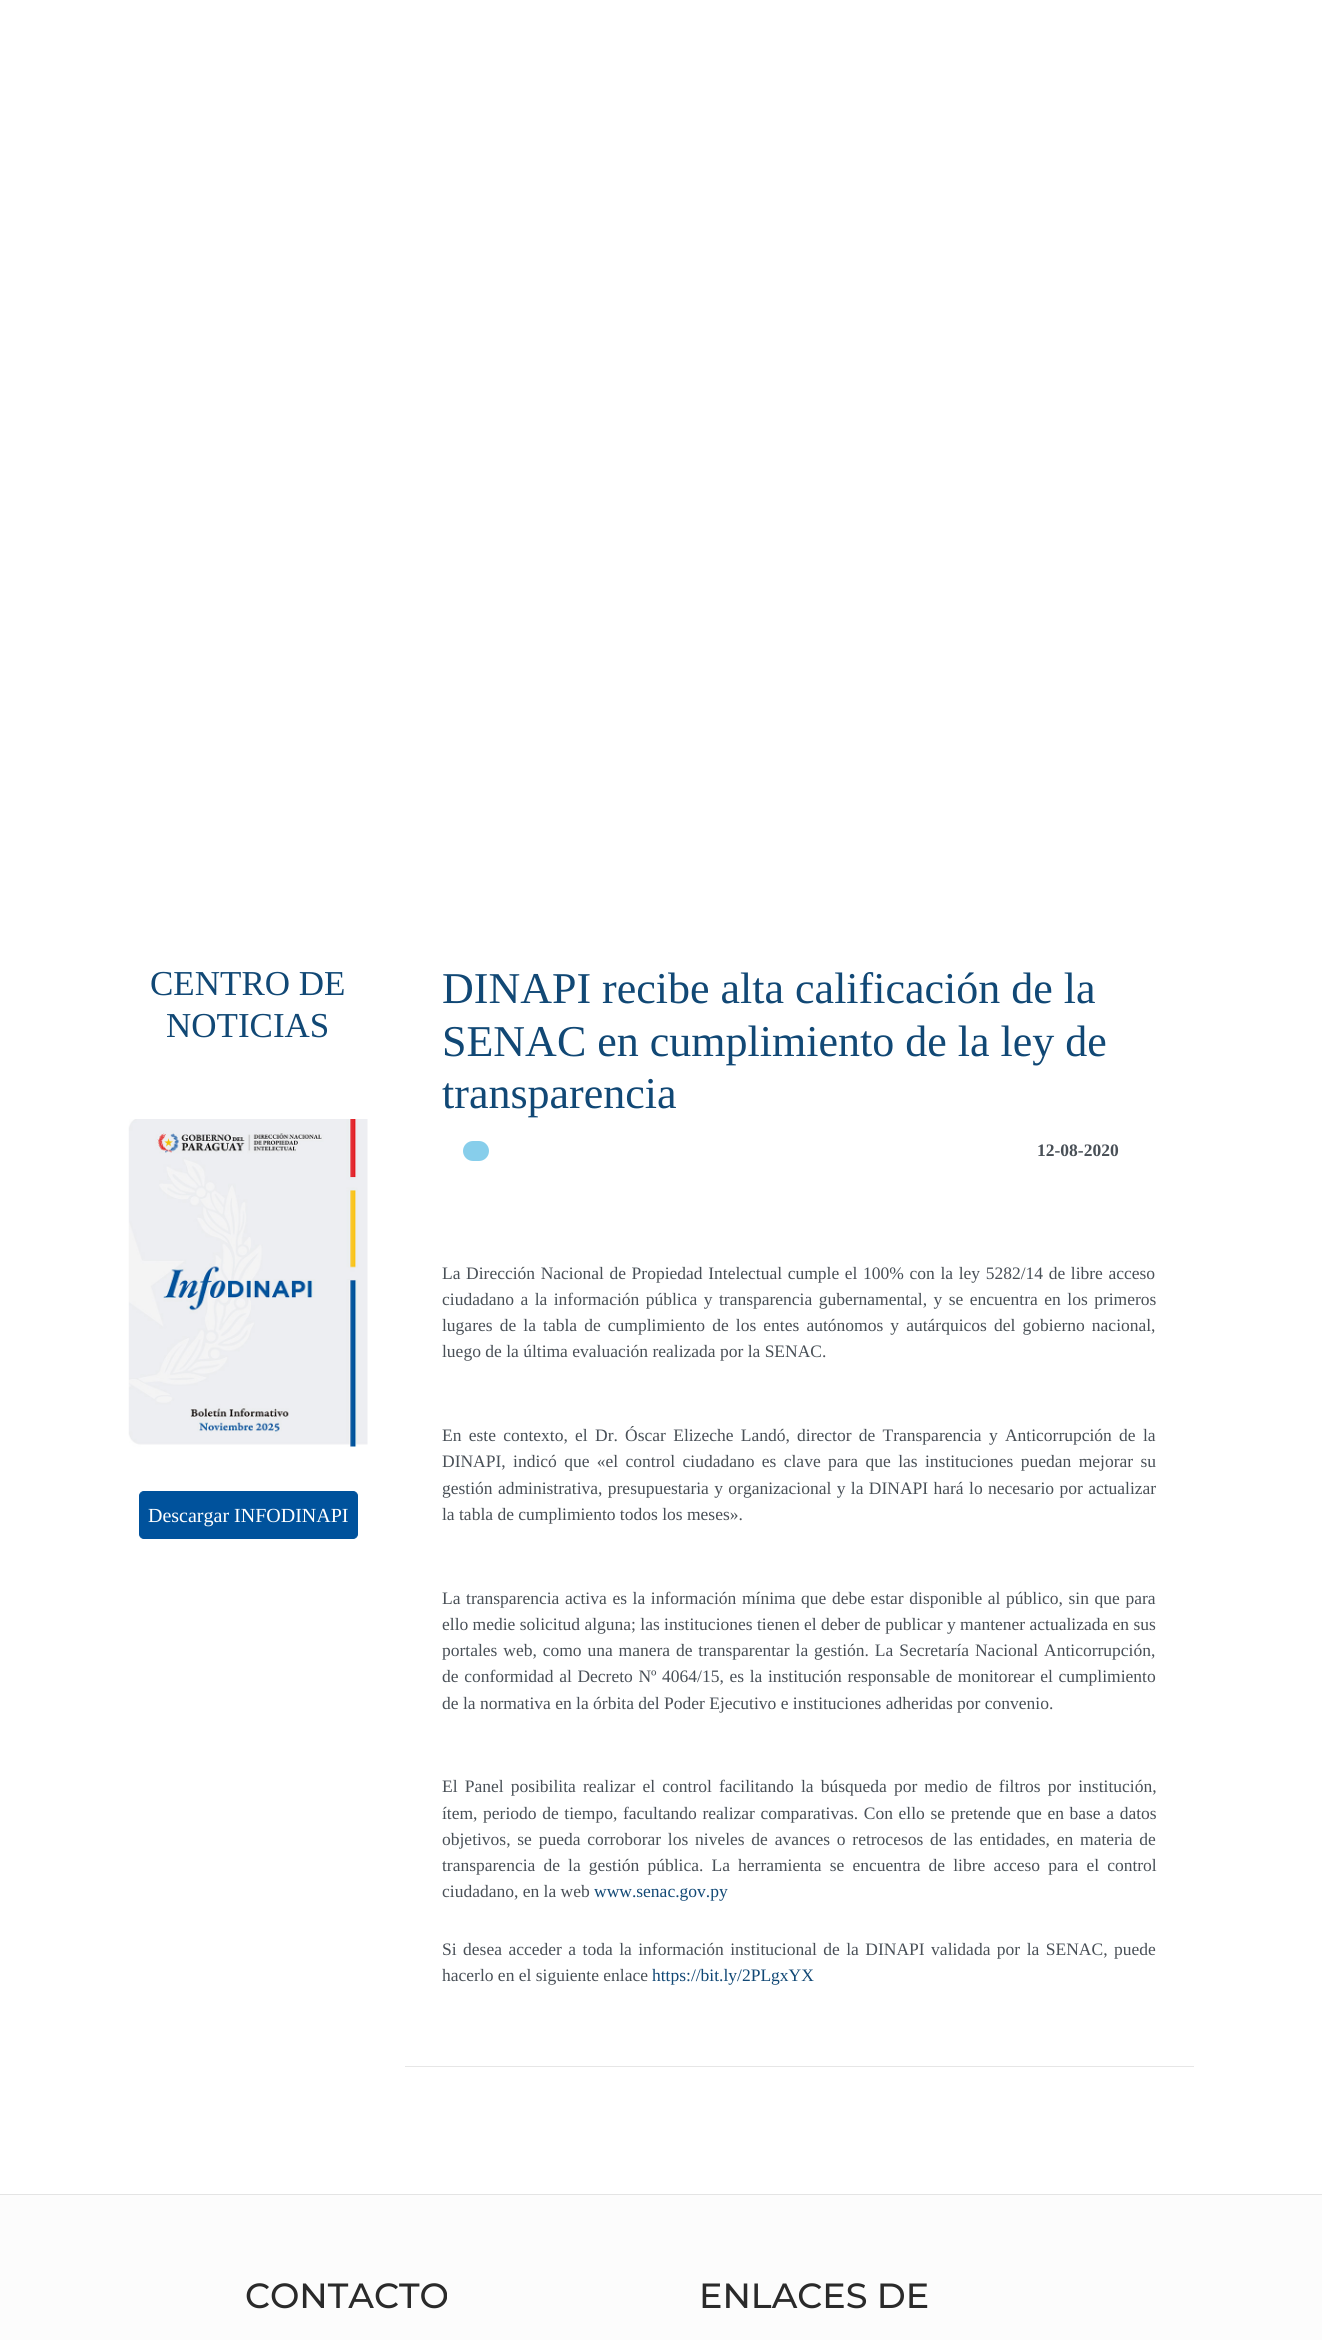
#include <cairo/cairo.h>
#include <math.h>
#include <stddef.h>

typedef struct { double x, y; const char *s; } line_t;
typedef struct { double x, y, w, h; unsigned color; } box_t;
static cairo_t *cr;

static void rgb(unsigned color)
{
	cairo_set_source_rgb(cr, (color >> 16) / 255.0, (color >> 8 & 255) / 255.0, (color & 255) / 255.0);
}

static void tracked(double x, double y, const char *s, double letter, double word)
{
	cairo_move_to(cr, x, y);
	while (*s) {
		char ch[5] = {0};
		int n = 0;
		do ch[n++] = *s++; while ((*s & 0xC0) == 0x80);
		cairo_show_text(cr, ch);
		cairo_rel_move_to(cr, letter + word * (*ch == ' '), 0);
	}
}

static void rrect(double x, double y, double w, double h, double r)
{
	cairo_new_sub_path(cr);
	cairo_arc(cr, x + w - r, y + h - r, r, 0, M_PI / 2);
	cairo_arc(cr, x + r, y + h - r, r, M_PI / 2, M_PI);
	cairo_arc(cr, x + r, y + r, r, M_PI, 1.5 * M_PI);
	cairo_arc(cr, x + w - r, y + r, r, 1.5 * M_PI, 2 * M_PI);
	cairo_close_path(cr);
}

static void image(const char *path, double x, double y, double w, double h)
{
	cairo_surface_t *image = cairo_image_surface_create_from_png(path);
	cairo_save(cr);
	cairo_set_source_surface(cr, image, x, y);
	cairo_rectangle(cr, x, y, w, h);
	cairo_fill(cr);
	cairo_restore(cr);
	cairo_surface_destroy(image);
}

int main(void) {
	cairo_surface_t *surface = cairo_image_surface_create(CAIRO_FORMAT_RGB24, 1322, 2340);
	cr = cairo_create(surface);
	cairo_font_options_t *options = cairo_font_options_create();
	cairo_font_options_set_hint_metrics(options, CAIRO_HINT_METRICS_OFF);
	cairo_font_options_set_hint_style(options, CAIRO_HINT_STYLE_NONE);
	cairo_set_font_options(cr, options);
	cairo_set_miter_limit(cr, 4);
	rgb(0xffffff);
	cairo_paint(cr);
	image("img/1.png", 128, 1119, 240, 328);
	rgb(0x00529c);
	rrect(139.5, 1491.5, 218, 47, 4.5);
	cairo_fill_preserve(cr);
	cairo_set_line_width(cr, 1);
	cairo_stroke(cr);
	rgb(0x87ceeb);
	rrect(463, 1141, 26, 20, 10);
	cairo_fill(cr);
	{
		static const box_t items[] = {
			{405, 2066, 789, 1, 0xe6e6e6},
			{0, 2195, 1322, 145, 0xfcfcfc},
			{0, 2194, 1322, 1, 0xe4e4e4},
		};
		for (size_t i = 0; i < sizeof items / sizeof *items; i++) {
			rgb(items[i].color);
			cairo_rectangle(cr, items[i].x, items[i].y, items[i].w, items[i].h);
			cairo_fill(cr);
		}
	}
	cairo_select_font_face(cr, "Liberation Serif", CAIRO_FONT_SLANT_NORMAL, CAIRO_FONT_WEIGHT_NORMAL);
	cairo_set_font_size(cr, 35);
	rgb(0x114875);
	cairo_move_to(cr, 150, 995);
	cairo_show_text(cr, "CENTRO DE");
	cairo_move_to(cr, 166, 1037);
	cairo_show_text(cr, "NOTICIAS");
	cairo_set_font_size(cr, 20);
	rgb(0xffffff);
	cairo_move_to(cr, 148, 1522);
	cairo_show_text(cr, "Descargar INFODINAPI");
	cairo_set_font_size(cr, 44);
	rgb(0x114875);
	{
		static const line_t items[] = {
			{442, 1003, "DINAPI recibe alta calificación de la"},
			{442, 1056, "SENAC en cumplimiento de la ley de"},
			{442, 1108, "transparencia"},
		};
		for (size_t i = 0; i < sizeof items / sizeof *items; i++) {
			cairo_move_to(cr, items[i].x, items[i].y);
			cairo_show_text(cr, items[i].s);
		}
	}
	cairo_select_font_face(cr, "Liberation Serif", CAIRO_FONT_SLANT_NORMAL, CAIRO_FONT_WEIGHT_BOLD);
	cairo_set_font_size(cr, 17.5);
	rgb(0x495057);
	cairo_move_to(cr, 1037, 1156);
	cairo_show_text(cr, "12-08-2020");
	cairo_select_font_face(cr, "Liberation Serif", CAIRO_FONT_SLANT_NORMAL, CAIRO_FONT_WEIGHT_NORMAL);
	tracked(442, 1279, "La Dirección Nacional de Propiedad Intelectual cumple el 100% con la ley 5282/14 de libre acceso", 0, 1.25);
	tracked(442, 1305, "ciudadano a la información pública y transparencia gubernamental, y se encuentra en los primeros", 0, 2.1);
	tracked(442, 1331, "lugares de la tabla de cumplimiento de los entes autónomos y autárquicos del gobierno nacional,", 0, 2.75);
	cairo_move_to(cr, 442, 1357);
	cairo_show_text(cr, "luego de la última evaluación realizada por la SENAC.");
	tracked(442, 1441, "En este contexto, el Dr. Óscar Elizeche Landó, director de Transparencia y Anticorrupción de la", 0, 2.9);
	tracked(442, 1467, "DINAPI, indicó que «el control ciudadano es clave para que las instituciones puedan mejorar su", 0, 3);
	tracked(442, 1494, "gestión administrativa, presupuestaria y organizacional y la DINAPI hará lo necesario por actualizar", 0, 1);
	cairo_move_to(cr, 442, 1520);
	cairo_show_text(cr, "la tabla de cumplimiento todos los meses».");
	tracked(442, 1604, "La transparencia activa es la información mínima que debe estar disponible al público, sin que para", 0, 1.25);
	cairo_move_to(cr, 442, 1630);
	cairo_show_text(cr, "ello medie solicitud alguna; las instituciones tienen el deber de publicar y mantener actualizada en sus");
	tracked(442, 1656, "portales web, como una manera de transparentar la gestión. La Secretaría Nacional Anticorrupción,", 0, 1.5);
	tracked(442, 1682, "de conformidad al Decreto Nº 4064/15, es la institución responsable de monitorear el cumplimiento", 0, 1.25);
	cairo_move_to(cr, 442, 1709);
	cairo_show_text(cr, "de la normativa en la órbita del Poder Ejecutivo e instituciones adheridas por convenio.");
	tracked(442, 1792, "El Panel posibilita realizar el control facilitando la búsqueda por medio de filtros por institución,", 0, 2.75);
	tracked(442, 1819, "ítem, periodo de tiempo, facultando realizar comparativas. Con ello se pretende que en base a datos", 0, 1.25);
	tracked(442, 1845, "objetivos, se pueda corroborar los niveles de avances o retrocesos de las entidades, en materia de", 0, 2.4);
	tracked(442, 1871, "transparencia de la gestión pública. La herramienta se encuentra de libre acceso para el control", 0, 3.75);
	cairo_move_to(cr, 442, 1897);
	cairo_show_text(cr, "ciudadano, en la web");
	rgb(0x114875);
	cairo_move_to(cr, 594, 1897);
	cairo_show_text(cr, "www.senac.gov.py");
	rgb(0x495057);
	tracked(442, 1955, "Si desea acceder a toda la información institucional de la DINAPI validada por la SENAC, puede", 0, 2.1);
	cairo_move_to(cr, 442, 1981);
	cairo_show_text(cr, "hacerlo en el siguiente enlace");
	rgb(0x114875);
	cairo_move_to(cr, 652, 1981);
	cairo_show_text(cr, "https://bit.ly/2PLgxYX");
	cairo_select_font_face(cr, "Montserrat Medium", CAIRO_FONT_SLANT_NORMAL, CAIRO_FONT_WEIGHT_NORMAL);
	cairo_set_font_size(cr, 35);
	rgb(0x2a2a2a);
	cairo_move_to(cr, 245, 2308);
	cairo_show_text(cr, "CONTACTO");
	cairo_move_to(cr, 699, 2308);
	cairo_show_text(cr, "ENLACES DE");
	cairo_surface_write_to_png(surface, "page.png");
	cairo_font_options_destroy(options);
	cairo_destroy(cr);
	cairo_surface_destroy(surface);
	return 0;
}
